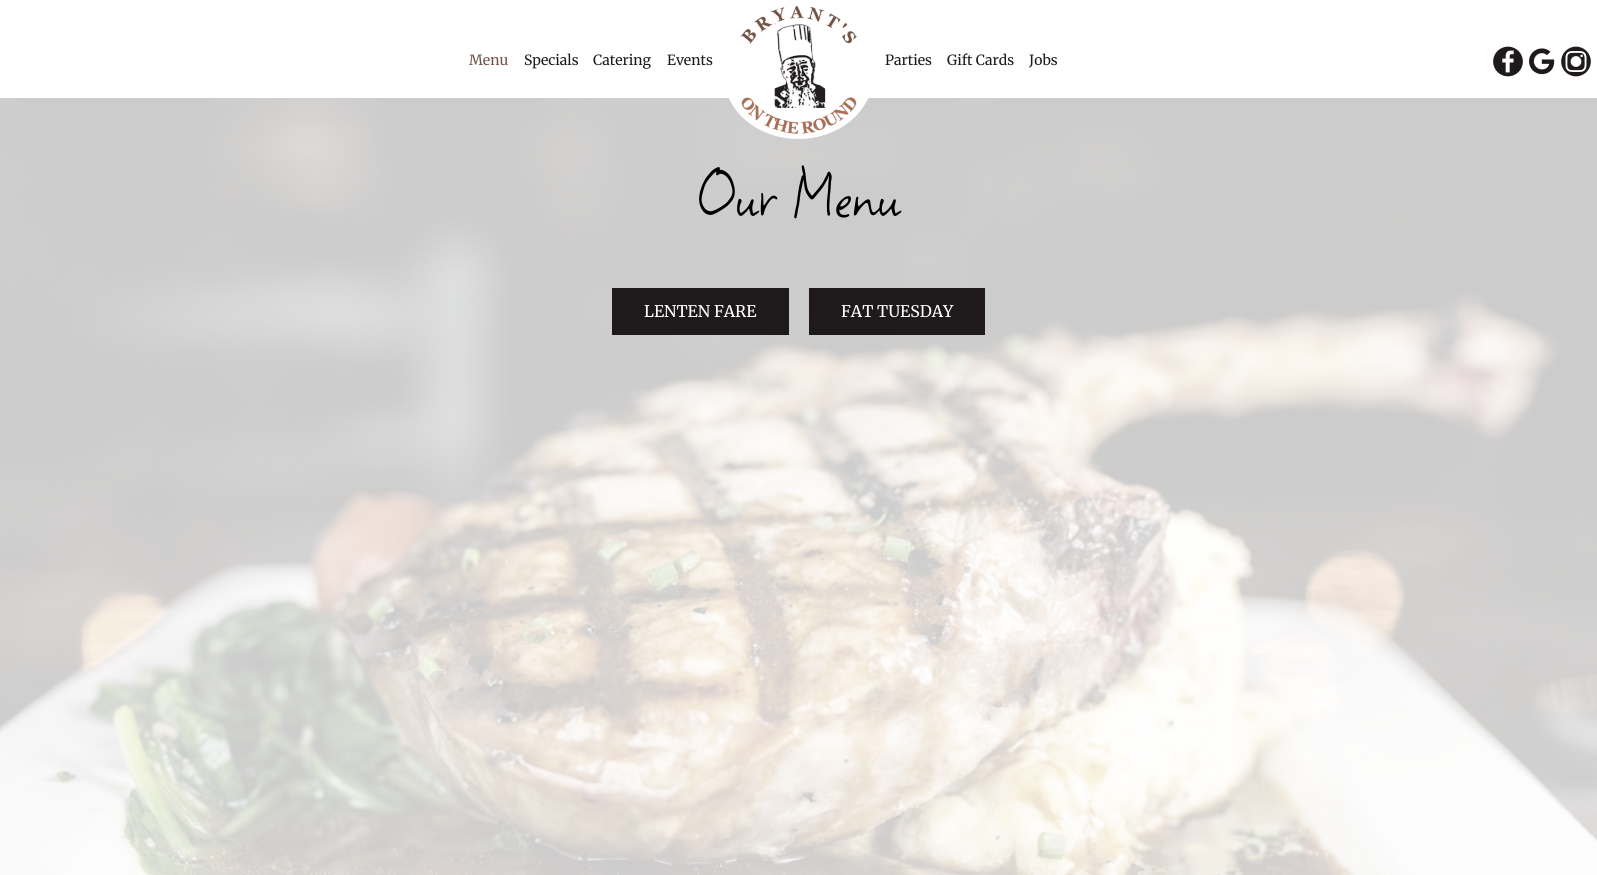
#include <cairo/cairo.h>
#include <math.h>
#include <stddef.h>

typedef struct { double x, y; const char *s; } line_t;
static cairo_t *cr;

static void rgb(unsigned color)
{
	cairo_set_source_rgb(cr, (color >> 16) / 255.0, (color >> 8 & 255) / 255.0, (color & 255) / 255.0);
}

static void image(const char *path, double x, double y, double w, double h)
{
	cairo_surface_t *image = cairo_image_surface_create_from_png(path);
	cairo_save(cr);
	cairo_set_source_surface(cr, image, x, y);
	cairo_rectangle(cr, x, y, w, h);
	cairo_fill(cr);
	cairo_restore(cr);
	cairo_surface_destroy(image);
}

int main(void) {
	cairo_surface_t *surface = cairo_image_surface_create(CAIRO_FORMAT_RGB24, 1597, 875);
	cr = cairo_create(surface);
	cairo_font_options_t *options = cairo_font_options_create();
	cairo_font_options_set_hint_metrics(options, CAIRO_HINT_METRICS_OFF);
	cairo_font_options_set_hint_style(options, CAIRO_HINT_STYLE_NONE);
	cairo_set_font_options(cr, options);
	cairo_set_miter_limit(cr, 4);
	rgb(0xffffff);
	cairo_paint(cr);
	image("img/5.png", 0, 98, 1597, 777);
	image("img/1.png", 0, 0, 1597, 139);
	image("img/2.png", 1493, 46, 30, 31);
	image("img/3.png", 1529, 48, 26, 27);
	image("img/4.png", 1561, 46, 30, 31);
	rgb(0x1e1a1b);
	cairo_rectangle(cr, 612, 288, 177, 47);
	cairo_fill(cr);
	cairo_rectangle(cr, 809, 288, 176, 47);
	cairo_fill(cr);
	cairo_select_font_face(cr, "Merriweather Light", CAIRO_FONT_SLANT_NORMAL, CAIRO_FONT_WEIGHT_NORMAL);
	cairo_set_font_size(cr, 14);
	rgb(0x735346);
	cairo_move_to(cr, 469, 65);
	cairo_show_text(cr, "Menu");
	rgb(0x1f1b1c);
	{
		static const line_t items[] = {
			{524, 65, "Specials"},
			{593, 65, "Catering"},
			{667, 65, "Events"},
			{885, 65, "Parties"},
			{947, 65, "Gift Cards"},
			{1029, 65, "Jobs"},
		};
		for (size_t i = 0; i < sizeof items / sizeof *items; i++) {
			cairo_move_to(cr, items[i].x, items[i].y);
			cairo_show_text(cr, items[i].s);
		}
	}
	cairo_select_font_face(cr, "Square Peg", CAIRO_FONT_SLANT_NORMAL, CAIRO_FONT_WEIGHT_NORMAL);
	cairo_set_font_size(cr, 75.5);
	rgb(0x000000);
	cairo_move_to(cr, 697, 216);
	cairo_show_text(cr, "Our Menu");
	cairo_select_font_face(cr, "Merriweather Light", CAIRO_FONT_SLANT_NORMAL, CAIRO_FONT_WEIGHT_NORMAL);
	cairo_set_font_size(cr, 16);
	rgb(0xffffff);
	cairo_move_to(cr, 644, 317);
	cairo_show_text(cr, "LENTEN FARE");
	cairo_move_to(cr, 841, 317);
	cairo_show_text(cr, "FAT TUESDAY");
	cairo_surface_write_to_png(surface, "page.png");
	cairo_font_options_destroy(options);
	cairo_destroy(cr);
	cairo_surface_destroy(surface);
	return 0;
}
